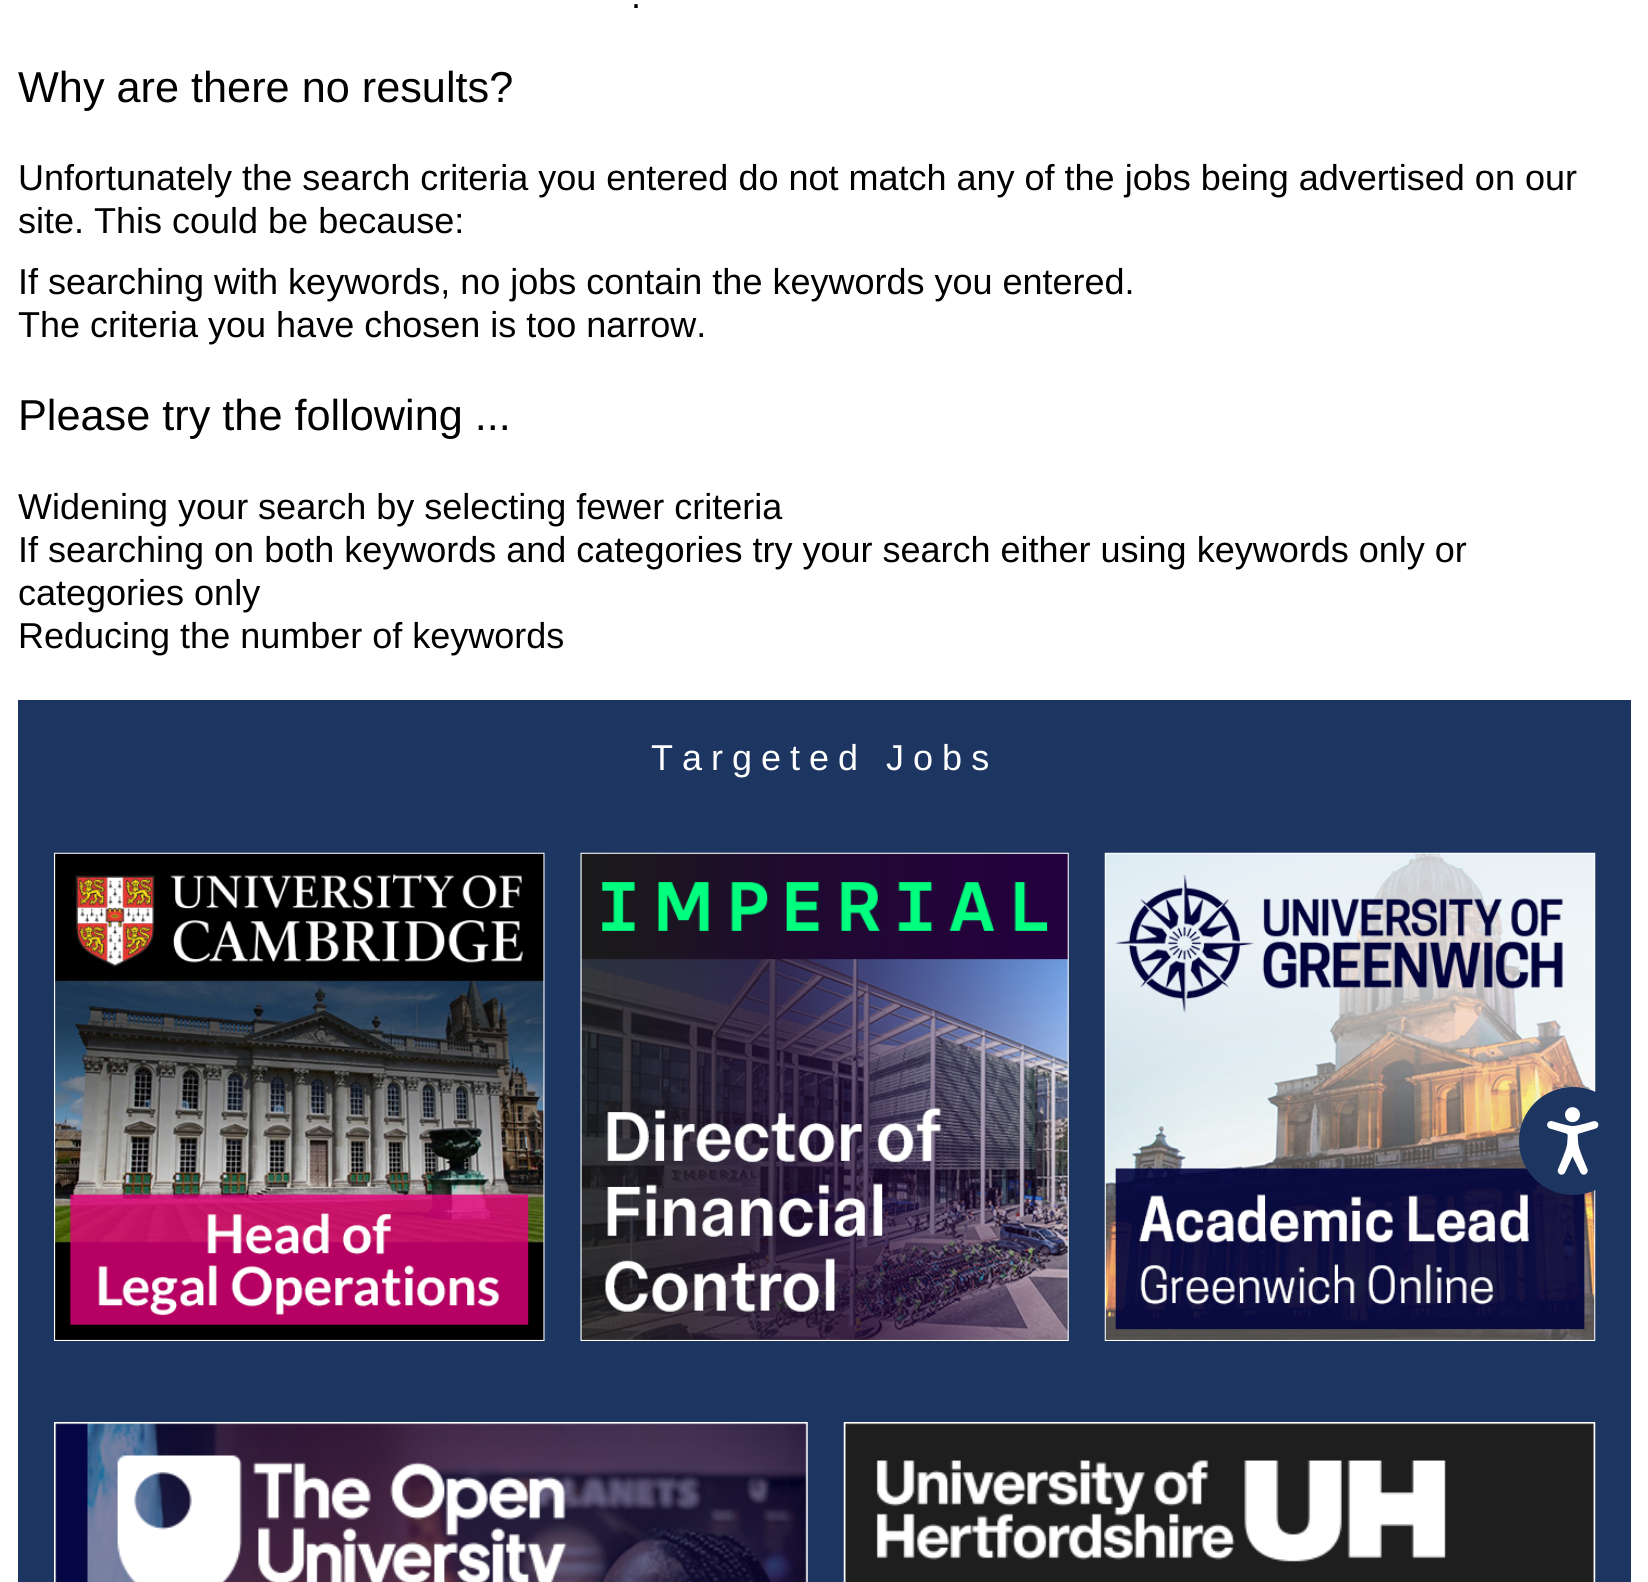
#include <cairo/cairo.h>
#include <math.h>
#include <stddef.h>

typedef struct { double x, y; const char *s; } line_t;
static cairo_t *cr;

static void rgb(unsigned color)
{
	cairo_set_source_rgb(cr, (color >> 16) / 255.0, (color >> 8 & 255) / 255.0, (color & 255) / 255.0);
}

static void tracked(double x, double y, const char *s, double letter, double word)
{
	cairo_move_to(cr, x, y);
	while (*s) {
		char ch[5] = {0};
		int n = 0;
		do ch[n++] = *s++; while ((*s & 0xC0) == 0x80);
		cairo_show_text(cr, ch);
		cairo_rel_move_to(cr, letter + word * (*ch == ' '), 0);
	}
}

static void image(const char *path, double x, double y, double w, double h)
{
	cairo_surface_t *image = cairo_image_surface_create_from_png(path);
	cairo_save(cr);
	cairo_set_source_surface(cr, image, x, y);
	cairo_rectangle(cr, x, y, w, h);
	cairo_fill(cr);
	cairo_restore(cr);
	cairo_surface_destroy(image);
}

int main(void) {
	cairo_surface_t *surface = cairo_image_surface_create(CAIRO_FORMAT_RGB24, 1648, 1582);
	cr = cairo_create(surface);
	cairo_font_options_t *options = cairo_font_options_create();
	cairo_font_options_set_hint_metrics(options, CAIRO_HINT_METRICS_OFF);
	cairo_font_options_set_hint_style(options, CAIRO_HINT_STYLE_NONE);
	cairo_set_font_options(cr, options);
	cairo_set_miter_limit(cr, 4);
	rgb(0xffffff);
	cairo_paint(cr);
	rgb(0x1d3661);
	cairo_rectangle(cr, 18, 700, 1613, 882);
	cairo_fill(cr);
	image("img/1.png", 54, 852, 491, 489);
	image("img/2.png", 580, 852, 489, 489);
	image("img/3.png", 1104, 852, 492, 489);
	image("img/4.png", 54, 1422, 754, 160);
	image("img/5.png", 843, 1422, 753, 160);
	cairo_arc(cr, 1573, 1141, 54, 0, 2 * M_PI);
	cairo_fill(cr);
	image("img/6.png", 1547, 1107, 52, 68);
	cairo_select_font_face(cr, "Liberation Sans", CAIRO_FONT_SLANT_NORMAL, CAIRO_FONT_WEIGHT_NORMAL);
	cairo_set_font_size(cr, 36);
	rgb(0x000000);
	cairo_move_to(cr, 631, 8);
	cairo_show_text(cr, ".");
	cairo_set_font_size(cr, 43.25);
	cairo_move_to(cr, 18, 102);
	cairo_show_text(cr, "Why are there no results?");
	cairo_set_font_size(cr, 36);
	{
		static const line_t items[] = {
			{18, 190, "Unfortunately the search criteria you entered do not match any of the jobs being advertised on our"},
			{18, 233, "site. This could be because:"},
			{18, 294, "If searching with keywords, no jobs contain the keywords you entered."},
			{18, 337, "The criteria you have chosen is too narrow."},
		};
		for (size_t i = 0; i < sizeof items / sizeof *items; i++) {
			cairo_move_to(cr, items[i].x, items[i].y);
			cairo_show_text(cr, items[i].s);
		}
	}
	cairo_set_font_size(cr, 43.25);
	cairo_move_to(cr, 18, 430);
	cairo_show_text(cr, "Please try the following ...");
	cairo_set_font_size(cr, 36);
	{
		static const line_t items[] = {
			{18, 519, "Widening your search by selecting fewer criteria"},
			{18, 562, "If searching on both keywords and categories try your search either using keywords only or"},
			{18, 605, "categories only"},
			{18, 648, "Reducing the number of keywords"},
		};
		for (size_t i = 0; i < sizeof items / sizeof *items; i++) {
			cairo_move_to(cr, items[i].x, items[i].y);
			cairo_show_text(cr, items[i].s);
		}
	}
	rgb(0xffffff);
	tracked(651, 770, "Targeted Jobs", 9, 0);
	cairo_surface_write_to_png(surface, "page.png");
	cairo_font_options_destroy(options);
	cairo_destroy(cr);
	cairo_surface_destroy(surface);
	return 0;
}
